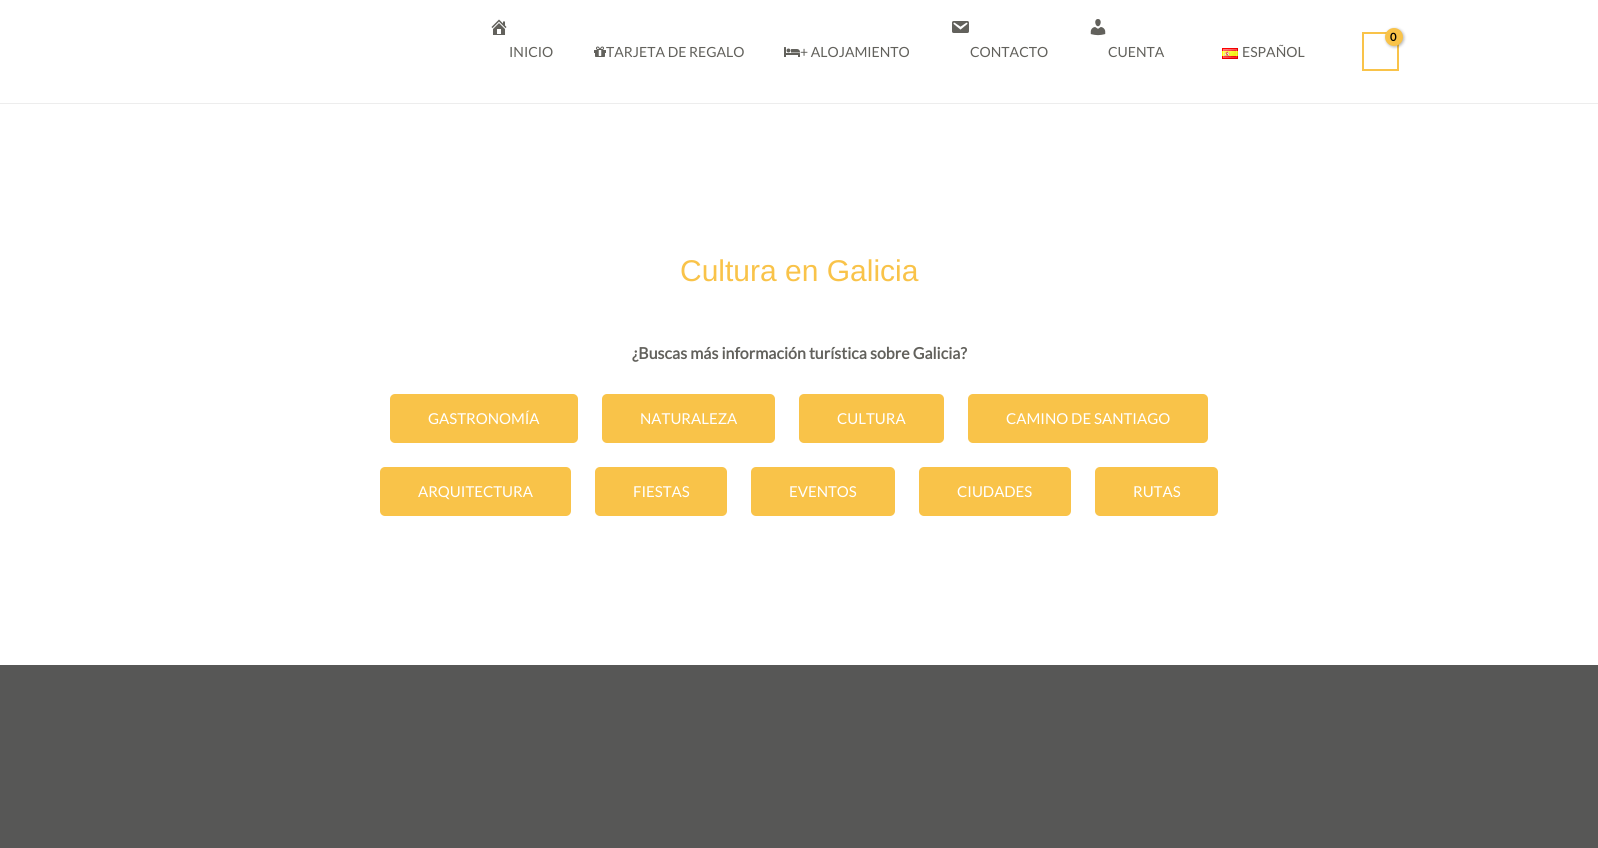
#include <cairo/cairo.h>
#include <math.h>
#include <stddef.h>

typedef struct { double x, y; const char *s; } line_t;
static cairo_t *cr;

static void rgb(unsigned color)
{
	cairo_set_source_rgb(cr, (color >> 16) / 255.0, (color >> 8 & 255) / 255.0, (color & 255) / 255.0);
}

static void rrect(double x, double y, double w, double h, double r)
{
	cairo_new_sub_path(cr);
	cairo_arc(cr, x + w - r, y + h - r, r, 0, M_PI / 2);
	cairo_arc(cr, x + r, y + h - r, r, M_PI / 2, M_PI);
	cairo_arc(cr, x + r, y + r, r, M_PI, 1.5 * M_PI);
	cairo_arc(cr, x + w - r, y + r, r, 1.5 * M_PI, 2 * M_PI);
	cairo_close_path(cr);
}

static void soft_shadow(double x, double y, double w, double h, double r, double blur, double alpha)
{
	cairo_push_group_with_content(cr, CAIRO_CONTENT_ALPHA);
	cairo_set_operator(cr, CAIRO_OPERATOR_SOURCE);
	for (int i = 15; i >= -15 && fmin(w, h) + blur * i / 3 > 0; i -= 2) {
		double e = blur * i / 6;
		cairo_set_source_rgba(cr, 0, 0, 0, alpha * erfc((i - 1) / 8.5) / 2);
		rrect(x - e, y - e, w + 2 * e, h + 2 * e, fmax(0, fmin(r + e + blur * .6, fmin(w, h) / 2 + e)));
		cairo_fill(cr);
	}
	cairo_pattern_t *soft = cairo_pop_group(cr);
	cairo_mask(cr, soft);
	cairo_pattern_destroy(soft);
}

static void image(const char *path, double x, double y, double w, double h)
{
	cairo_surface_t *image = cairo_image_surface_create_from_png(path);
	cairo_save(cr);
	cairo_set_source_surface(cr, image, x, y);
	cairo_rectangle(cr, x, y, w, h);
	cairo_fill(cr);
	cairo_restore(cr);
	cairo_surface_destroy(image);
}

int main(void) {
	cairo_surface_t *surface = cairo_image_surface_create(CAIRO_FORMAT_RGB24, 1598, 848);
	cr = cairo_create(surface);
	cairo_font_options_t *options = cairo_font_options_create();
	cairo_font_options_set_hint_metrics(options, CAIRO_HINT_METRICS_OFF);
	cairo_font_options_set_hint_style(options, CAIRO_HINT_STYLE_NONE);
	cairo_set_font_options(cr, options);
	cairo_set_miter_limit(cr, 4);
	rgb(0xffffff);
	cairo_paint(cr);
	rgb(0xededed);
	cairo_rectangle(cr, 0, 103, 1598, 1);
	cairo_fill(cr);
	cairo_rectangle(cr, 1363, 33, 35, 37);
	rgb(0xf9c349);
	cairo_stroke(cr);
	rgb(0x000000);
	soft_shadow(1386, 29, 18, 18, 9, 1.5, 0.3);
	rgb(0xf9c349);
	cairo_arc(cr, 1394, 37, 9, 0, 2 * M_PI);
	cairo_fill(cr);
	image("img/1.png", 491, 19, 16, 16);
	image("img/2.png", 594, 46, 12, 11);
	image("img/3.png", 784, 47, 16, 10);
	image("img/4.png", 952, 21, 17, 12);
	image("img/5.png", 1090, 19, 16, 17);
	image("img/6.png", 1222, 48, 16, 11);
	rrect(390, 394, 188, 49, 5);
	cairo_fill(cr);
	rrect(602, 394, 173, 49, 5);
	cairo_fill(cr);
	rrect(799, 394, 145, 49, 5);
	cairo_fill(cr);
	rrect(968, 394, 240, 49, 5);
	cairo_fill(cr);
	rrect(380, 467, 191, 49, 5);
	cairo_fill(cr);
	rrect(595, 467, 132, 49, 5);
	cairo_fill(cr);
	rrect(751, 467, 144, 49, 5);
	cairo_fill(cr);
	rrect(919, 467, 152, 49, 5);
	cairo_fill(cr);
	rrect(1095, 467, 123, 49, 5);
	cairo_fill(cr);
	rgb(0x575756);
	cairo_rectangle(cr, 0, 665, 1598, 183);
	cairo_fill(cr);
	cairo_select_font_face(cr, "Lato", CAIRO_FONT_SLANT_NORMAL, CAIRO_FONT_WEIGHT_BOLD);
	cairo_set_font_size(cr, 11);
	rgb(0x000000);
	cairo_move_to(cr, 1390, 41);
	cairo_show_text(cr, "0");
	cairo_select_font_face(cr, "Lato", CAIRO_FONT_SLANT_NORMAL, CAIRO_FONT_WEIGHT_NORMAL);
	cairo_set_font_size(cr, 14);
	rgb(0x62615c);
	{
		static const line_t items[] = {
			{509, 57, "INICIO"},
			{606, 57, "TARJETA DE REGALO"},
			{800, 57, "+ ALOJAMIENTO"},
			{970, 57, "CONTACTO"},
			{1108, 57, "CUENTA"},
			{1242, 57, "ESPAÑOL"},
		};
		for (size_t i = 0; i < sizeof items / sizeof *items; i++) {
			cairo_move_to(cr, items[i].x, items[i].y);
			cairo_show_text(cr, items[i].s);
		}
	}
	cairo_select_font_face(cr, "Liberation Sans", CAIRO_FONT_SLANT_NORMAL, CAIRO_FONT_WEIGHT_NORMAL);
	cairo_set_font_size(cr, 30);
	rgb(0xf9c349);
	cairo_move_to(cr, 680, 281);
	cairo_show_text(cr, "Cultura en Galicia");
	cairo_select_font_face(cr, "Lato", CAIRO_FONT_SLANT_NORMAL, CAIRO_FONT_WEIGHT_BOLD);
	cairo_set_font_size(cr, 16);
	rgb(0x62615c);
	cairo_move_to(cr, 632, 359);
	cairo_show_text(cr, "¿Buscas más información turística sobre Galicia?");
	cairo_select_font_face(cr, "Lato", CAIRO_FONT_SLANT_NORMAL, CAIRO_FONT_WEIGHT_NORMAL);
	cairo_set_font_size(cr, 15);
	rgb(0xffffff);
	{
		static const line_t items[] = {
			{428, 424, "GASTRONOMÍA"},
			{640, 424, "NATURALEZA"},
			{837, 424, "CULTURA"},
			{1006, 424, "CAMINO DE SANTIAGO"},
			{418, 497, "ARQUITECTURA"},
			{633, 497, "FIESTAS"},
			{789, 497, "EVENTOS"},
			{957, 497, "CIUDADES"},
			{1133, 497, "RUTAS"},
		};
		for (size_t i = 0; i < sizeof items / sizeof *items; i++) {
			cairo_move_to(cr, items[i].x, items[i].y);
			cairo_show_text(cr, items[i].s);
		}
	}
	cairo_surface_write_to_png(surface, "page.png");
	cairo_font_options_destroy(options);
	cairo_destroy(cr);
	cairo_surface_destroy(surface);
	return 0;
}
